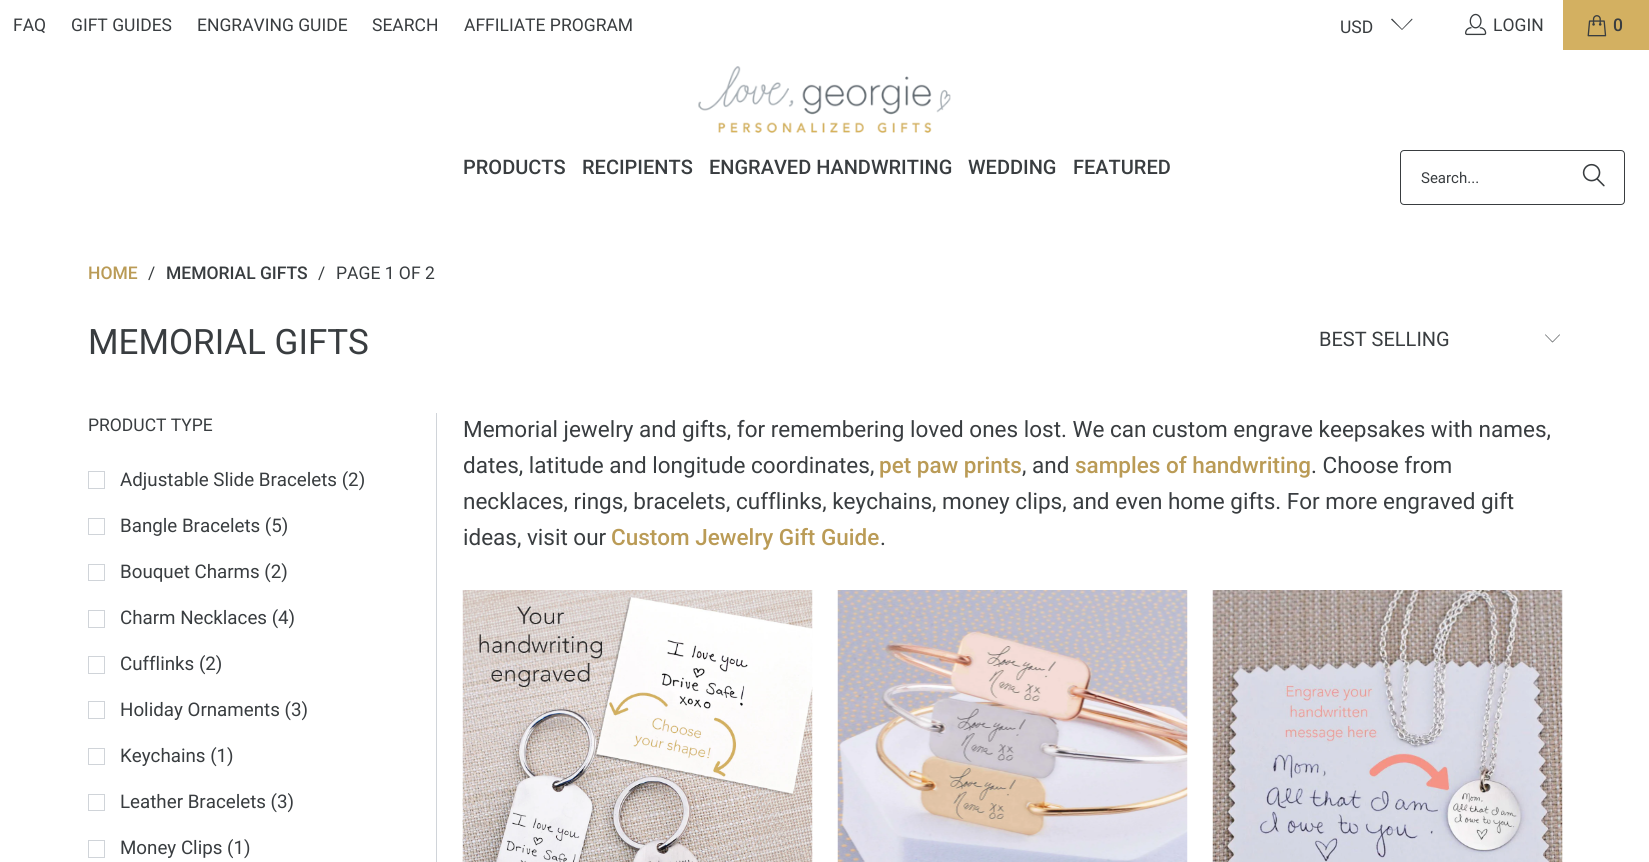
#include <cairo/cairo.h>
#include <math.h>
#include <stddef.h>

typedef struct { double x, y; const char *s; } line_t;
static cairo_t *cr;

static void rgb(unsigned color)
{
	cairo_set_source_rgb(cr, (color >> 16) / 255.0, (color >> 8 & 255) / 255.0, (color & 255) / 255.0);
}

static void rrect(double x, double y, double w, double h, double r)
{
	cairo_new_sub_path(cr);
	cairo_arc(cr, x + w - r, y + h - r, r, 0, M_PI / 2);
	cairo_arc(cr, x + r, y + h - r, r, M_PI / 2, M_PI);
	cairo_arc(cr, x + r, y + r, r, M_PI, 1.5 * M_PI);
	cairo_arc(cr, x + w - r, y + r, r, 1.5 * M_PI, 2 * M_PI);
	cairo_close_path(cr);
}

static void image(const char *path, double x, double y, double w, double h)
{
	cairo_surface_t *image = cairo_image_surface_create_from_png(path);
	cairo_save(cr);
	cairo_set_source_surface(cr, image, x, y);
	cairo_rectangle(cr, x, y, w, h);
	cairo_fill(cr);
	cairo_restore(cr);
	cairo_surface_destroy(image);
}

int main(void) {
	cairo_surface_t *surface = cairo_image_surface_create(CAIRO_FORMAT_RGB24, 1649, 862);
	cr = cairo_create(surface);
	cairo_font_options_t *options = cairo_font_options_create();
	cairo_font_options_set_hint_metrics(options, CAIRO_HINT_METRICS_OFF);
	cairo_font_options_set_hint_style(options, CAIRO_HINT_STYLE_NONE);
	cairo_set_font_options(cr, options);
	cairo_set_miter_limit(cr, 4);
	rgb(0xffffff);
	cairo_paint(cr);
	rgb(0x393d40);
	cairo_new_path(cr);
	cairo_move_to(cr, 1402, 30);
	cairo_line_to(cr, 1391, 19.5);
	cairo_line_to(cr, 1392, 18.5);
	cairo_line_to(cr, 1402, 29);
	cairo_line_to(cr, 1412, 18.5);
	cairo_line_to(cr, 1412.5, 19.5);
	cairo_close_path(cr);
	cairo_fill(cr);
	image("img/1.png", 1465, 13, 22, 23);
	rgb(0xd3b061);
	cairo_rectangle(cr, 1563, 0, 86, 50);
	cairo_fill(cr);
	image("img/2.png", 1587, 15, 20, 22);
	image("img/3.png", 698, 66, 253, 67);
	rrect(1400.5, 150.5, 224, 54, 3.5);
	rgb(0x393d40);
	cairo_set_line_width(cr, 1);
	cairo_stroke(cr);
	image("img/4.png", 1582, 163, 23, 24);
	image("img/5.png", 1545, 334, 15, 9);
	rgb(0xd0d4d9);
	cairo_rectangle(cr, 436, 413, 1, 449);
	cairo_fill(cr);
	cairo_rectangle(cr, 88.5, 471.5, 16, 17);
	cairo_stroke(cr);
	cairo_rectangle(cr, 88.5, 518.5, 16, 16);
	cairo_stroke(cr);
	cairo_rectangle(cr, 88.5, 564.5, 16, 16);
	cairo_stroke(cr);
	cairo_rectangle(cr, 88.5, 610.5, 16, 17);
	cairo_stroke(cr);
	cairo_rectangle(cr, 88.5, 656.5, 16, 17);
	cairo_stroke(cr);
	cairo_rectangle(cr, 88.5, 701.5, 16, 17);
	cairo_stroke(cr);
	cairo_rectangle(cr, 88.5, 748.5, 16, 16);
	cairo_stroke(cr);
	cairo_rectangle(cr, 88.5, 794.5, 16, 16);
	cairo_stroke(cr);
	cairo_rectangle(cr, 88.5, 840.5, 16, 17);
	cairo_stroke(cr);
	image("img/6.png", 462, 590, 351, 272);
	image("img/7.png", 837, 590, 351, 272);
	image("img/8.png", 1212, 590, 351, 272);
	cairo_select_font_face(cr, "Roboto", CAIRO_FONT_SLANT_NORMAL, CAIRO_FONT_WEIGHT_NORMAL);
	cairo_set_font_size(cr, 17.5);
	rgb(0x393d40);
	{
		static const line_t items[] = {
			{13, 31, "FAQ"},
			{71, 31, "GIFT GUIDES"},
			{197, 31, "ENGRAVING GUIDE"},
			{372, 31, "SEARCH"},
			{464, 31, "AFFILIATE PROGRAM"},
			{1340, 33, "USD"},
			{1493, 31, "LOGIN"},
		};
		for (size_t i = 0; i < sizeof items / sizeof *items; i++) {
			cairo_move_to(cr, items[i].x, items[i].y);
			cairo_show_text(cr, items[i].s);
		}
	}
	cairo_select_font_face(cr, "Roboto Medium", CAIRO_FONT_SLANT_NORMAL, CAIRO_FONT_WEIGHT_NORMAL);
	cairo_move_to(cr, 1613, 31);
	cairo_show_text(cr, "0");
	cairo_set_font_size(cr, 20);
	{
		static const line_t items[] = {
			{463, 174, "PRODUCTS"},
			{582, 174, "RECIPIENTS"},
			{709, 174, "ENGRAVED HANDWRITING"},
			{968, 174, "WEDDING"},
			{1073, 174, "FEATURED"},
		};
		for (size_t i = 0; i < sizeof items / sizeof *items; i++) {
			cairo_move_to(cr, items[i].x, items[i].y);
			cairo_show_text(cr, items[i].s);
		}
	}
	cairo_select_font_face(cr, "Roboto", CAIRO_FONT_SLANT_NORMAL, CAIRO_FONT_WEIGHT_NORMAL);
	cairo_set_font_size(cr, 15);
	cairo_move_to(cr, 1421, 183);
	cairo_show_text(cr, "Search...");
	cairo_select_font_face(cr, "Roboto Medium", CAIRO_FONT_SLANT_NORMAL, CAIRO_FONT_WEIGHT_NORMAL);
	cairo_set_font_size(cr, 17.5);
	rgb(0xba9b56);
	cairo_move_to(cr, 88, 279);
	cairo_show_text(cr, "HOME");
	cairo_select_font_face(cr, "Roboto", CAIRO_FONT_SLANT_NORMAL, CAIRO_FONT_WEIGHT_NORMAL);
	rgb(0x393d40);
	cairo_move_to(cr, 148, 279);
	cairo_show_text(cr, "/");
	cairo_select_font_face(cr, "Roboto Medium", CAIRO_FONT_SLANT_NORMAL, CAIRO_FONT_WEIGHT_NORMAL);
	cairo_move_to(cr, 166, 279);
	cairo_show_text(cr, "MEMORIAL GIFTS");
	cairo_select_font_face(cr, "Roboto", CAIRO_FONT_SLANT_NORMAL, CAIRO_FONT_WEIGHT_NORMAL);
	cairo_move_to(cr, 318, 279);
	cairo_show_text(cr, "/");
	cairo_move_to(cr, 336, 279);
	cairo_show_text(cr, "PAGE 1 OF 2");
	cairo_set_font_size(cr, 35);
	cairo_move_to(cr, 88, 354);
	cairo_show_text(cr, "MEMORIAL GIFTS");
	cairo_set_font_size(cr, 20);
	cairo_move_to(cr, 1319, 346);
	cairo_show_text(cr, "BEST SELLING");
	cairo_set_font_size(cr, 17.5);
	cairo_move_to(cr, 88, 431);
	cairo_show_text(cr, "PRODUCT TYPE");
	cairo_set_font_size(cr, 18.75);
	{
		static const line_t items[] = {
			{120, 486, "Adjustable Slide Bracelets (2)"},
			{120, 532, "Bangle Bracelets (5)"},
			{120, 578, "Bouquet Charms (2)"},
			{120, 624, "Charm Necklaces (4)"},
			{120, 670, "Cufflinks (2)"},
			{120, 716, "Holiday Ornaments (3)"},
			{120, 762, "Keychains (1)"},
			{120, 808, "Leather Bracelets (3)"},
			{120, 854, "Money Clips (1)"},
		};
		for (size_t i = 0; i < sizeof items / sizeof *items; i++) {
			cairo_move_to(cr, items[i].x, items[i].y);
			cairo_show_text(cr, items[i].s);
		}
	}
	cairo_set_font_size(cr, 22.5);
	cairo_move_to(cr, 463, 437);
	cairo_show_text(cr, "Memorial jewelry and gifts, for remembering loved ones lost. We can custom engrave keepsakes with names,");
	cairo_move_to(cr, 463, 473);
	cairo_show_text(cr, "dates, latitude and longitude coordinates,");
	cairo_select_font_face(cr, "Roboto Medium", CAIRO_FONT_SLANT_NORMAL, CAIRO_FONT_WEIGHT_NORMAL);
	rgb(0xba9b56);
	cairo_move_to(cr, 879, 473);
	cairo_show_text(cr, "pet paw prints");
	cairo_select_font_face(cr, "Roboto", CAIRO_FONT_SLANT_NORMAL, CAIRO_FONT_WEIGHT_NORMAL);
	rgb(0x393d40);
	cairo_move_to(cr, 1022, 473);
	cairo_show_text(cr, ", and");
	cairo_select_font_face(cr, "Roboto Medium", CAIRO_FONT_SLANT_NORMAL, CAIRO_FONT_WEIGHT_NORMAL);
	rgb(0xba9b56);
	cairo_move_to(cr, 1075, 473);
	cairo_show_text(cr, "samples of handwriting");
	cairo_select_font_face(cr, "Roboto", CAIRO_FONT_SLANT_NORMAL, CAIRO_FONT_WEIGHT_NORMAL);
	rgb(0x393d40);
	{
		static const line_t items[] = {
			{1311, 473, ". Choose from"},
			{463, 509, "necklaces, rings, bracelets, cufflinks, keychains, money clips, and even home gifts. For more engraved gift"},
			{463, 545, "ideas, visit our"},
		};
		for (size_t i = 0; i < sizeof items / sizeof *items; i++) {
			cairo_move_to(cr, items[i].x, items[i].y);
			cairo_show_text(cr, items[i].s);
		}
	}
	cairo_select_font_face(cr, "Roboto Medium", CAIRO_FONT_SLANT_NORMAL, CAIRO_FONT_WEIGHT_NORMAL);
	rgb(0xba9b56);
	cairo_move_to(cr, 611, 545);
	cairo_show_text(cr, "Custom Jewelry Gift Guide");
	cairo_select_font_face(cr, "Roboto", CAIRO_FONT_SLANT_NORMAL, CAIRO_FONT_WEIGHT_NORMAL);
	rgb(0x393d40);
	cairo_move_to(cr, 880, 545);
	cairo_show_text(cr, ".");
	cairo_surface_write_to_png(surface, "page.png");
	cairo_font_options_destroy(options);
	cairo_destroy(cr);
	cairo_surface_destroy(surface);
	return 0;
}
